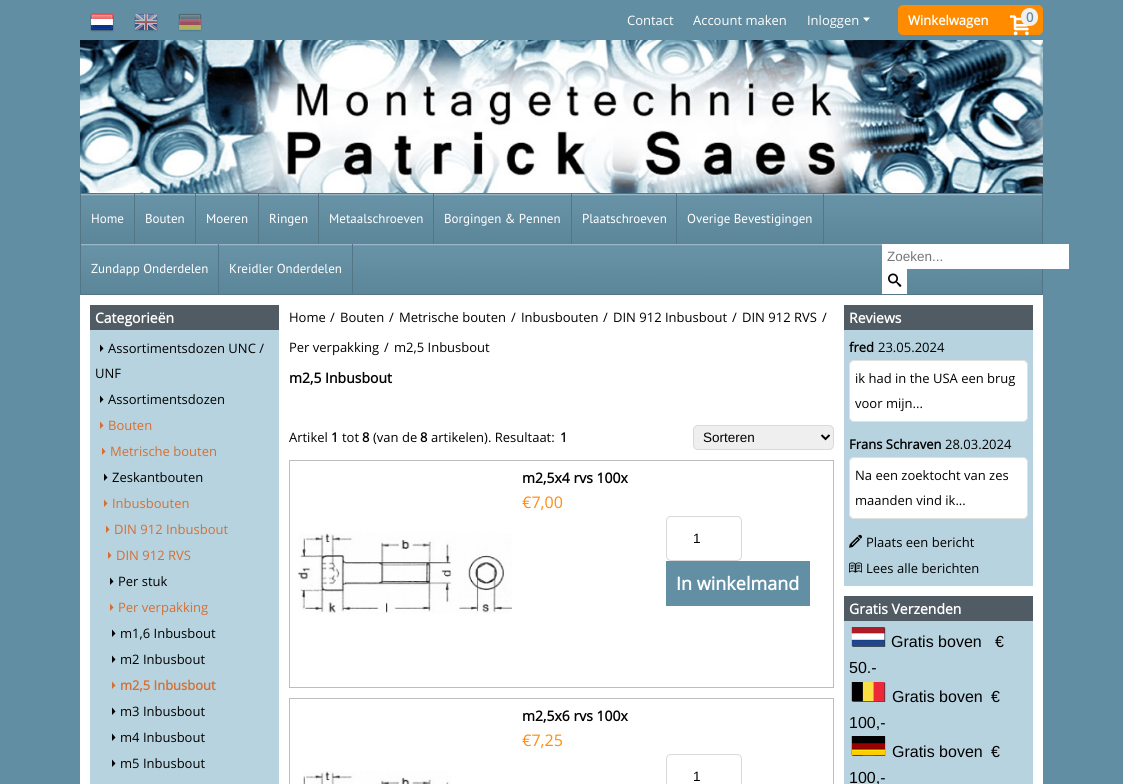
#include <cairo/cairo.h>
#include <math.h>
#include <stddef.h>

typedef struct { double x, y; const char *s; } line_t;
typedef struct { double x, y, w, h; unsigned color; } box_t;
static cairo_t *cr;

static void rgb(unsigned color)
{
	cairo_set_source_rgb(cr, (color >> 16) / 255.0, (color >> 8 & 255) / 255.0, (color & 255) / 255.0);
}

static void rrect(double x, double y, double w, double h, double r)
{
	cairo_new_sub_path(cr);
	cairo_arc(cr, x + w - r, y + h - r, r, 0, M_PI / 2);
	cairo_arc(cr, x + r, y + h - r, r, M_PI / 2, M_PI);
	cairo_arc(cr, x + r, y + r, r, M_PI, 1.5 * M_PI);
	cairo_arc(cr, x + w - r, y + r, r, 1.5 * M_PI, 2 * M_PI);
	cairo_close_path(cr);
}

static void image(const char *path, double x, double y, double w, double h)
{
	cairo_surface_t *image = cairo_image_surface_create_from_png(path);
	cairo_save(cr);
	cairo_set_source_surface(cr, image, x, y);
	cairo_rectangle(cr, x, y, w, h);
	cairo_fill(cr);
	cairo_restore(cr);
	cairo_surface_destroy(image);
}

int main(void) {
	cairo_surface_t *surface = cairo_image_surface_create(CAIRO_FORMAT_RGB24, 1123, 784);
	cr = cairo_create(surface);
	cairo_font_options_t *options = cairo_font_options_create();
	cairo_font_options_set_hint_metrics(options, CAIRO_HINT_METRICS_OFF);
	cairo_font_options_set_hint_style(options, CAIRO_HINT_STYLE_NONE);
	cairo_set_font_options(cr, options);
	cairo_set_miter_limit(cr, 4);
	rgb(0x618ea3);
	cairo_paint(cr);
	image("img/1.png", 90, 13, 24, 19);
	image("img/2.png", 134, 13, 24, 19);
	image("img/3.png", 178, 13, 24, 19);
	rgb(0xffffff);
	cairo_new_path(cr);
	cairo_move_to(cr, 863, 17.5);
	cairo_line_to(cr, 866.5, 21.5);
	cairo_line_to(cr, 870, 17.5);
	cairo_close_path(cr);
	cairo_fill(cr);
	rgb(0xff8c00);
	rrect(898, 5, 145, 30, 5);
	cairo_fill(cr);
	image("img/4.png", 1010, 15, 19, 21);
	rgb(0xf0f0f0);
	rrect(1021, 8, 17, 18, 8.5);
	cairo_fill(cr);
	image("img/5.png", 80, 40, 963, 153);
	image("img/6.png", 81, 194, 961, 100);
	cairo_rectangle(cr, 80.5, 193.5, 962, 101);
	rgb(0x537585);
	cairo_set_line_width(cr, 1);
	cairo_stroke(cr);
	{
		static const box_t items[] = {
			{134, 194, 1, 50, 0x537585},
			{195, 194, 1, 50, 0x537585},
			{258, 194, 1, 50, 0x537585},
			{318, 194, 1, 50, 0x537585},
			{433, 194, 1, 50, 0x537585},
			{571, 194, 1, 50, 0x537585},
			{676, 194, 1, 50, 0x537585},
			{823, 194, 1, 50, 0x537585},
			{218, 244, 1, 50, 0x537585},
			{352, 244, 1, 50, 0x537585},
			{882, 244, 187, 25, 0xffffff},
			{882, 269, 25, 25, 0xffffff},
		};
		for (size_t i = 0; i < sizeof items / sizeof *items; i++) {
			rgb(items[i].color);
			cairo_rectangle(cr, items[i].x, items[i].y, items[i].w, items[i].h);
			cairo_fill(cr);
		}
	}
	image("img/7.png", 888, 273, 14, 14);
	{
		static const box_t items[] = {
			{80, 295, 963, 489, 0xffffff},
			{90, 330, 189, 454, 0xb7d3df},
			{90, 305, 189, 25, 0x505b64},
		};
		for (size_t i = 0; i < sizeof items / sizeof *items; i++) {
			rgb(items[i].color);
			cairo_rectangle(cr, items[i].x, items[i].y, items[i].w, items[i].h);
			cairo_fill(cr);
		}
	}
	rgb(0x000000);
	cairo_new_path(cr);
	cairo_move_to(cr, 100, 352);
	cairo_line_to(cr, 103.5, 348.5);
	cairo_line_to(cr, 100, 344.5);
	cairo_close_path(cr);
	cairo_move_to(cr, 100, 403);
	cairo_line_to(cr, 103.5, 399.5);
	cairo_line_to(cr, 100, 395.5);
	cairo_close_path(cr);
	cairo_fill(cr);
	rgb(0xd66e32);
	cairo_new_path(cr);
	cairo_move_to(cr, 100, 429);
	cairo_line_to(cr, 103.5, 425.5);
	cairo_line_to(cr, 100, 421.5);
	cairo_close_path(cr);
	cairo_move_to(cr, 102, 455);
	cairo_line_to(cr, 105.5, 451.5);
	cairo_line_to(cr, 102, 447.5);
	cairo_close_path(cr);
	cairo_fill(cr);
	rgb(0x000000);
	cairo_new_path(cr);
	cairo_move_to(cr, 104, 481);
	cairo_line_to(cr, 107.5, 477.5);
	cairo_line_to(cr, 104, 473.5);
	cairo_close_path(cr);
	cairo_fill(cr);
	rgb(0xd66e32);
	cairo_new_path(cr);
	cairo_move_to(cr, 104, 507);
	cairo_line_to(cr, 107.5, 503.5);
	cairo_line_to(cr, 104, 499.5);
	cairo_close_path(cr);
	cairo_move_to(cr, 106, 533);
	cairo_line_to(cr, 109.5, 529.5);
	cairo_line_to(cr, 106, 525.5);
	cairo_close_path(cr);
	cairo_move_to(cr, 108, 559);
	cairo_line_to(cr, 111.5, 555.5);
	cairo_line_to(cr, 108, 551.5);
	cairo_close_path(cr);
	cairo_fill(cr);
	rgb(0x000000);
	cairo_new_path(cr);
	cairo_move_to(cr, 110, 585);
	cairo_line_to(cr, 113.5, 581.5);
	cairo_line_to(cr, 110, 577.5);
	cairo_close_path(cr);
	cairo_fill(cr);
	rgb(0xd66e32);
	cairo_new_path(cr);
	cairo_move_to(cr, 110, 611);
	cairo_line_to(cr, 113.5, 607.5);
	cairo_line_to(cr, 110, 603.5);
	cairo_close_path(cr);
	cairo_fill(cr);
	rgb(0x000000);
	cairo_new_path(cr);
	cairo_move_to(cr, 112, 637);
	cairo_line_to(cr, 115.5, 633.5);
	cairo_line_to(cr, 112, 629.5);
	cairo_close_path(cr);
	cairo_move_to(cr, 112, 663);
	cairo_line_to(cr, 115.5, 659.5);
	cairo_line_to(cr, 112, 655.5);
	cairo_close_path(cr);
	cairo_fill(cr);
	rgb(0xd66e32);
	cairo_new_path(cr);
	cairo_move_to(cr, 112, 689);
	cairo_line_to(cr, 115.5, 685.5);
	cairo_line_to(cr, 112, 681.5);
	cairo_close_path(cr);
	cairo_fill(cr);
	rgb(0x000000);
	cairo_new_path(cr);
	cairo_move_to(cr, 112, 715);
	cairo_line_to(cr, 115.5, 711.5);
	cairo_line_to(cr, 112, 707.5);
	cairo_close_path(cr);
	cairo_move_to(cr, 112, 741);
	cairo_line_to(cr, 115.5, 737.5);
	cairo_line_to(cr, 112, 733.5);
	cairo_close_path(cr);
	cairo_move_to(cr, 112, 767);
	cairo_line_to(cr, 115.5, 763.5);
	cairo_line_to(cr, 112, 759.5);
	cairo_close_path(cr);
	cairo_fill(cr);
	rgb(0xefefef);
	rrect(693.5, 425.5, 140, 24, 4.5);
	cairo_fill_preserve(cr);
	rgb(0xd9d9d9);
	cairo_stroke(cr);
	cairo_new_path(cr);
	cairo_move_to(cr, 821.5, 435);
	cairo_line_to(cr, 825.5, 439);
	cairo_line_to(cr, 829.5, 435);
	rgb(0x000000);
	cairo_set_line_width(cr, 2);
	cairo_stroke(cr);
	cairo_rectangle(cr, 289.5, 460.5, 544, 227);
	rgb(0xbdbdbd);
	cairo_set_line_width(cr, 1);
	cairo_stroke(cr);
	image("img/8.png", 298, 533, 214, 81);
	rrect(666.5, 516.5, 75, 44, 4.5);
	rgb(0xd9d9d9);
	cairo_stroke(cr);
	rgb(0x628fa4);
	cairo_rectangle(cr, 666, 561, 144, 45);
	cairo_fill(cr);
	cairo_rectangle(cr, 289.5, 698.5, 544, 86);
	rgb(0xbdbdbd);
	cairo_stroke(cr);
	image("img/9.png", 303, 771, 148, 13);
	rrect(666.5, 754.5, 75, 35, 4.5);
	rgb(0xd9d9d9);
	cairo_stroke(cr);
	rgb(0xb7d3df);
	cairo_rectangle(cr, 844, 330, 189, 256);
	cairo_fill(cr);
	rgb(0x505b64);
	cairo_rectangle(cr, 844, 305, 189, 25);
	cairo_fill(cr);
	rgb(0xffffff);
	rrect(849.5, 360.5, 178, 61, 4.5);
	cairo_fill_preserve(cr);
	rgb(0xe0e0e0);
	cairo_stroke(cr);
	rgb(0xffffff);
	rrect(849.5, 457.5, 178, 61, 4.5);
	cairo_fill_preserve(cr);
	rgb(0xe0e0e0);
	cairo_stroke(cr);
	image("img/10.png", 849, 534, 13, 14);
	image("img/11.png", 849, 562, 13, 11);
	rgb(0xb7d3df);
	cairo_rectangle(cr, 844, 621, 189, 163);
	cairo_fill(cr);
	rgb(0x505b64);
	cairo_rectangle(cr, 844, 596, 189, 25);
	cairo_fill(cr);
	image("img/12.png", 851, 627, 35, 20);
	image("img/13.png", 851, 682, 35, 20);
	image("img/14.png", 851, 736, 35, 20);
	cairo_select_font_face(cr, "Open Sans", CAIRO_FONT_SLANT_NORMAL, CAIRO_FONT_WEIGHT_NORMAL);
	cairo_set_font_size(cr, 13);
	rgb(0xffffff);
	{
		static const line_t items[] = {
			{627, 25, "Contact"},
			{693, 25, "Account maken"},
			{807, 25, "Inloggen"},
		};
		for (size_t i = 0; i < sizeof items / sizeof *items; i++) {
			cairo_move_to(cr, items[i].x, items[i].y);
			cairo_show_text(cr, items[i].s);
		}
	}
	cairo_select_font_face(cr, "Open Sans", CAIRO_FONT_SLANT_NORMAL, CAIRO_FONT_WEIGHT_BOLD);
	cairo_move_to(cr, 908, 25);
	cairo_show_text(cr, "Winkelwagen");
	rgb(0x618ea3);
	cairo_move_to(cr, 1026, 22);
	cairo_show_text(cr, "0");
	cairo_select_font_face(cr, "PT Sans", CAIRO_FONT_SLANT_NORMAL, CAIRO_FONT_WEIGHT_NORMAL);
	rgb(0xffffff);
	{
		static const line_t items[] = {
			{91, 223, "Home"},
			{145, 223, "Bouten"},
			{206, 223, "Moeren"},
			{269, 223, "Ringen"},
			{329, 223, "Metaalschroeven"},
			{444, 223, "Borgingen & Pennen"},
			{582, 223, "Plaatschroeven"},
			{687, 223, "Overige Bevestigingen"},
			{91, 273, "Zundapp Onderdelen"},
			{229, 273, "Kreidler Onderdelen"},
		};
		for (size_t i = 0; i < sizeof items / sizeof *items; i++) {
			cairo_move_to(cr, items[i].x, items[i].y);
			cairo_show_text(cr, items[i].s);
		}
	}
	cairo_select_font_face(cr, "Liberation Sans", CAIRO_FONT_SLANT_NORMAL, CAIRO_FONT_WEIGHT_NORMAL);
	cairo_set_font_size(cr, 13.5);
	rgb(0x757575);
	cairo_move_to(cr, 887, 261);
	cairo_show_text(cr, "Zoeken...");
	cairo_select_font_face(cr, "Open Sans", CAIRO_FONT_SLANT_NORMAL, CAIRO_FONT_WEIGHT_BOLD);
	cairo_set_font_size(cr, 14);
	rgb(0xffffff);
	cairo_move_to(cr, 95, 323);
	cairo_show_text(cr, "Categorieën");
	cairo_select_font_face(cr, "Open Sans", CAIRO_FONT_SLANT_NORMAL, CAIRO_FONT_WEIGHT_NORMAL);
	cairo_set_font_size(cr, 13);
	rgb(0x000000);
	{
		static const line_t items[] = {
			{108, 353, "Assortimentsdozen UNC /"},
			{95, 378, "UNF"},
			{108, 404, "Assortimentsdozen"},
		};
		for (size_t i = 0; i < sizeof items / sizeof *items; i++) {
			cairo_move_to(cr, items[i].x, items[i].y);
			cairo_show_text(cr, items[i].s);
		}
	}
	rgb(0xd66e32);
	cairo_move_to(cr, 108, 430);
	cairo_show_text(cr, "Bouten");
	cairo_move_to(cr, 110, 456);
	cairo_show_text(cr, "Metrische bouten");
	rgb(0x000000);
	cairo_move_to(cr, 112, 482);
	cairo_show_text(cr, "Zeskantbouten");
	rgb(0xd66e32);
	{
		static const line_t items[] = {
			{112, 508, "Inbusbouten"},
			{114, 534, "DIN 912 Inbusbout"},
			{116, 560, "DIN 912 RVS"},
		};
		for (size_t i = 0; i < sizeof items / sizeof *items; i++) {
			cairo_move_to(cr, items[i].x, items[i].y);
			cairo_show_text(cr, items[i].s);
		}
	}
	rgb(0x000000);
	cairo_move_to(cr, 118, 586);
	cairo_show_text(cr, "Per stuk");
	rgb(0xd66e32);
	cairo_move_to(cr, 118, 612);
	cairo_show_text(cr, "Per verpakking");
	rgb(0x000000);
	cairo_move_to(cr, 120, 638);
	cairo_show_text(cr, "m1,6 Inbusbout");
	cairo_move_to(cr, 120, 664);
	cairo_show_text(cr, "m2 Inbusbout");
	cairo_select_font_face(cr, "Open Sans", CAIRO_FONT_SLANT_NORMAL, CAIRO_FONT_WEIGHT_BOLD);
	rgb(0xd66e32);
	cairo_move_to(cr, 120, 690);
	cairo_show_text(cr, "m2,5 Inbusbout");
	cairo_select_font_face(cr, "Open Sans", CAIRO_FONT_SLANT_NORMAL, CAIRO_FONT_WEIGHT_NORMAL);
	rgb(0x000000);
	{
		static const line_t items[] = {
			{120, 716, "m3 Inbusbout"},
			{120, 742, "m4 Inbusbout"},
			{120, 768, "m5 Inbusbout"},
			{289, 322, "Home"},
			{330, 322, "/"},
			{340, 322, "Bouten"},
			{389, 322, "/"},
			{399, 322, "Metrische bouten"},
			{511, 322, "/"},
			{521, 322, "Inbusbouten"},
			{603, 322, "/"},
			{613, 322, "DIN 912 Inbusbout"},
			{732, 322, "/"},
			{742, 322, "DIN 912 RVS"},
			{822, 322, "/"},
			{289, 352, "Per verpakking"},
			{384, 352, "/"},
			{394, 352, "m2,5 Inbusbout"},
		};
		for (size_t i = 0; i < sizeof items / sizeof *items; i++) {
			cairo_move_to(cr, items[i].x, items[i].y);
			cairo_show_text(cr, items[i].s);
		}
	}
	cairo_select_font_face(cr, "Open Sans", CAIRO_FONT_SLANT_NORMAL, CAIRO_FONT_WEIGHT_BOLD);
	cairo_set_font_size(cr, 14);
	cairo_move_to(cr, 289, 383);
	cairo_show_text(cr, "m2,5 Inbusbout");
	cairo_select_font_face(cr, "Open Sans", CAIRO_FONT_SLANT_NORMAL, CAIRO_FONT_WEIGHT_NORMAL);
	cairo_set_font_size(cr, 13);
	cairo_move_to(cr, 289, 442);
	cairo_show_text(cr, "Artikel");
	cairo_select_font_face(cr, "Open Sans", CAIRO_FONT_SLANT_NORMAL, CAIRO_FONT_WEIGHT_BOLD);
	cairo_move_to(cr, 331, 442);
	cairo_show_text(cr, "1");
	cairo_select_font_face(cr, "Open Sans", CAIRO_FONT_SLANT_NORMAL, CAIRO_FONT_WEIGHT_NORMAL);
	cairo_move_to(cr, 342, 442);
	cairo_show_text(cr, "tot");
	cairo_select_font_face(cr, "Open Sans", CAIRO_FONT_SLANT_NORMAL, CAIRO_FONT_WEIGHT_BOLD);
	cairo_move_to(cr, 362, 442);
	cairo_show_text(cr, "8");
	cairo_select_font_face(cr, "Open Sans", CAIRO_FONT_SLANT_NORMAL, CAIRO_FONT_WEIGHT_NORMAL);
	cairo_move_to(cr, 373, 442);
	cairo_show_text(cr, "(van de");
	cairo_select_font_face(cr, "Open Sans", CAIRO_FONT_SLANT_NORMAL, CAIRO_FONT_WEIGHT_BOLD);
	cairo_move_to(cr, 420, 442);
	cairo_show_text(cr, "8");
	cairo_select_font_face(cr, "Open Sans", CAIRO_FONT_SLANT_NORMAL, CAIRO_FONT_WEIGHT_NORMAL);
	cairo_move_to(cr, 431, 442);
	cairo_show_text(cr, "artikelen). Resultaat:");
	cairo_select_font_face(cr, "Open Sans", CAIRO_FONT_SLANT_NORMAL, CAIRO_FONT_WEIGHT_BOLD);
	cairo_move_to(cr, 560, 442);
	cairo_show_text(cr, "1");
	cairo_select_font_face(cr, "Liberation Sans", CAIRO_FONT_SLANT_NORMAL, CAIRO_FONT_WEIGHT_NORMAL);
	cairo_set_font_size(cr, 13.5);
	cairo_move_to(cr, 703, 442);
	cairo_show_text(cr, "Sorteren");
	cairo_select_font_face(cr, "Open Sans", CAIRO_FONT_SLANT_NORMAL, CAIRO_FONT_WEIGHT_BOLD);
	cairo_set_font_size(cr, 14);
	cairo_move_to(cr, 522, 483);
	cairo_show_text(cr, "m2,5x4 rvs 100x");
	cairo_select_font_face(cr, "Open Sans", CAIRO_FONT_SLANT_NORMAL, CAIRO_FONT_WEIGHT_NORMAL);
	cairo_set_font_size(cr, 16);
	rgb(0xff8c12);
	cairo_move_to(cr, 522, 508);
	cairo_show_text(cr, "€7,00");
	cairo_select_font_face(cr, "Liberation Sans", CAIRO_FONT_SLANT_NORMAL, CAIRO_FONT_WEIGHT_NORMAL);
	cairo_set_font_size(cr, 13.5);
	rgb(0x000000);
	cairo_move_to(cr, 693, 543);
	cairo_show_text(cr, "1");
	cairo_select_font_face(cr, "Open Sans", CAIRO_FONT_SLANT_NORMAL, CAIRO_FONT_WEIGHT_BOLD);
	cairo_set_font_size(cr, 18);
	rgb(0xffffff);
	cairo_move_to(cr, 676, 590);
	cairo_show_text(cr, "In winkelmand");
	cairo_set_font_size(cr, 14);
	rgb(0x000000);
	cairo_move_to(cr, 522, 721);
	cairo_show_text(cr, "m2,5x6 rvs 100x");
	cairo_select_font_face(cr, "Open Sans", CAIRO_FONT_SLANT_NORMAL, CAIRO_FONT_WEIGHT_NORMAL);
	cairo_set_font_size(cr, 16);
	rgb(0xff8c12);
	cairo_move_to(cr, 522, 746);
	cairo_show_text(cr, "€7,25");
	cairo_select_font_face(cr, "Liberation Sans", CAIRO_FONT_SLANT_NORMAL, CAIRO_FONT_WEIGHT_NORMAL);
	cairo_set_font_size(cr, 13.5);
	rgb(0x000000);
	cairo_move_to(cr, 693, 781);
	cairo_show_text(cr, "1");
	cairo_select_font_face(cr, "Open Sans", CAIRO_FONT_SLANT_NORMAL, CAIRO_FONT_WEIGHT_BOLD);
	cairo_set_font_size(cr, 14);
	rgb(0xffffff);
	cairo_move_to(cr, 849, 323);
	cairo_show_text(cr, "Reviews");
	cairo_set_font_size(cr, 13);
	rgb(0x000000);
	cairo_move_to(cr, 849, 352);
	cairo_show_text(cr, "fred");
	cairo_select_font_face(cr, "Open Sans", CAIRO_FONT_SLANT_NORMAL, CAIRO_FONT_WEIGHT_NORMAL);
	{
		static const line_t items[] = {
			{878, 352, "23.05.2024"},
			{855, 383, "ik had in the USA een brug"},
			{855, 408, "voor mijn..."},
		};
		for (size_t i = 0; i < sizeof items / sizeof *items; i++) {
			cairo_move_to(cr, items[i].x, items[i].y);
			cairo_show_text(cr, items[i].s);
		}
	}
	cairo_select_font_face(cr, "Open Sans", CAIRO_FONT_SLANT_NORMAL, CAIRO_FONT_WEIGHT_BOLD);
	cairo_move_to(cr, 849, 449);
	cairo_show_text(cr, "Frans Schraven");
	cairo_select_font_face(cr, "Open Sans", CAIRO_FONT_SLANT_NORMAL, CAIRO_FONT_WEIGHT_NORMAL);
	{
		static const line_t items[] = {
			{945, 449, "28.03.2024"},
			{855, 480, "Na een zoektocht van zes"},
			{855, 505, "maanden vind ik..."},
			{866, 547, "Plaats een bericht"},
			{866, 573, "Lees alle berichten"},
		};
		for (size_t i = 0; i < sizeof items / sizeof *items; i++) {
			cairo_move_to(cr, items[i].x, items[i].y);
			cairo_show_text(cr, items[i].s);
		}
	}
	cairo_select_font_face(cr, "Open Sans", CAIRO_FONT_SLANT_NORMAL, CAIRO_FONT_WEIGHT_BOLD);
	cairo_set_font_size(cr, 14);
	rgb(0xffffff);
	cairo_move_to(cr, 849, 614);
	cairo_show_text(cr, "Gratis Verzenden");
	cairo_select_font_face(cr, "Liberation Sans", CAIRO_FONT_SLANT_NORMAL, CAIRO_FONT_WEIGHT_NORMAL);
	cairo_set_font_size(cr, 16);
	rgb(0x000000);
	{
		static const line_t items[] = {
			{891, 647, "Gratis boven   €"},
			{849, 673, "50.-"},
			{892, 702, "Gratis boven"},
			{991, 702, "€"},
			{849, 728, "100,-"},
			{892, 757, "Gratis boven"},
			{991, 757, "€"},
			{849, 783, "100,-"},
		};
		for (size_t i = 0; i < sizeof items / sizeof *items; i++) {
			cairo_move_to(cr, items[i].x, items[i].y);
			cairo_show_text(cr, items[i].s);
		}
	}
	cairo_surface_write_to_png(surface, "page.png");
	cairo_font_options_destroy(options);
	cairo_destroy(cr);
	cairo_surface_destroy(surface);
	return 0;
}
